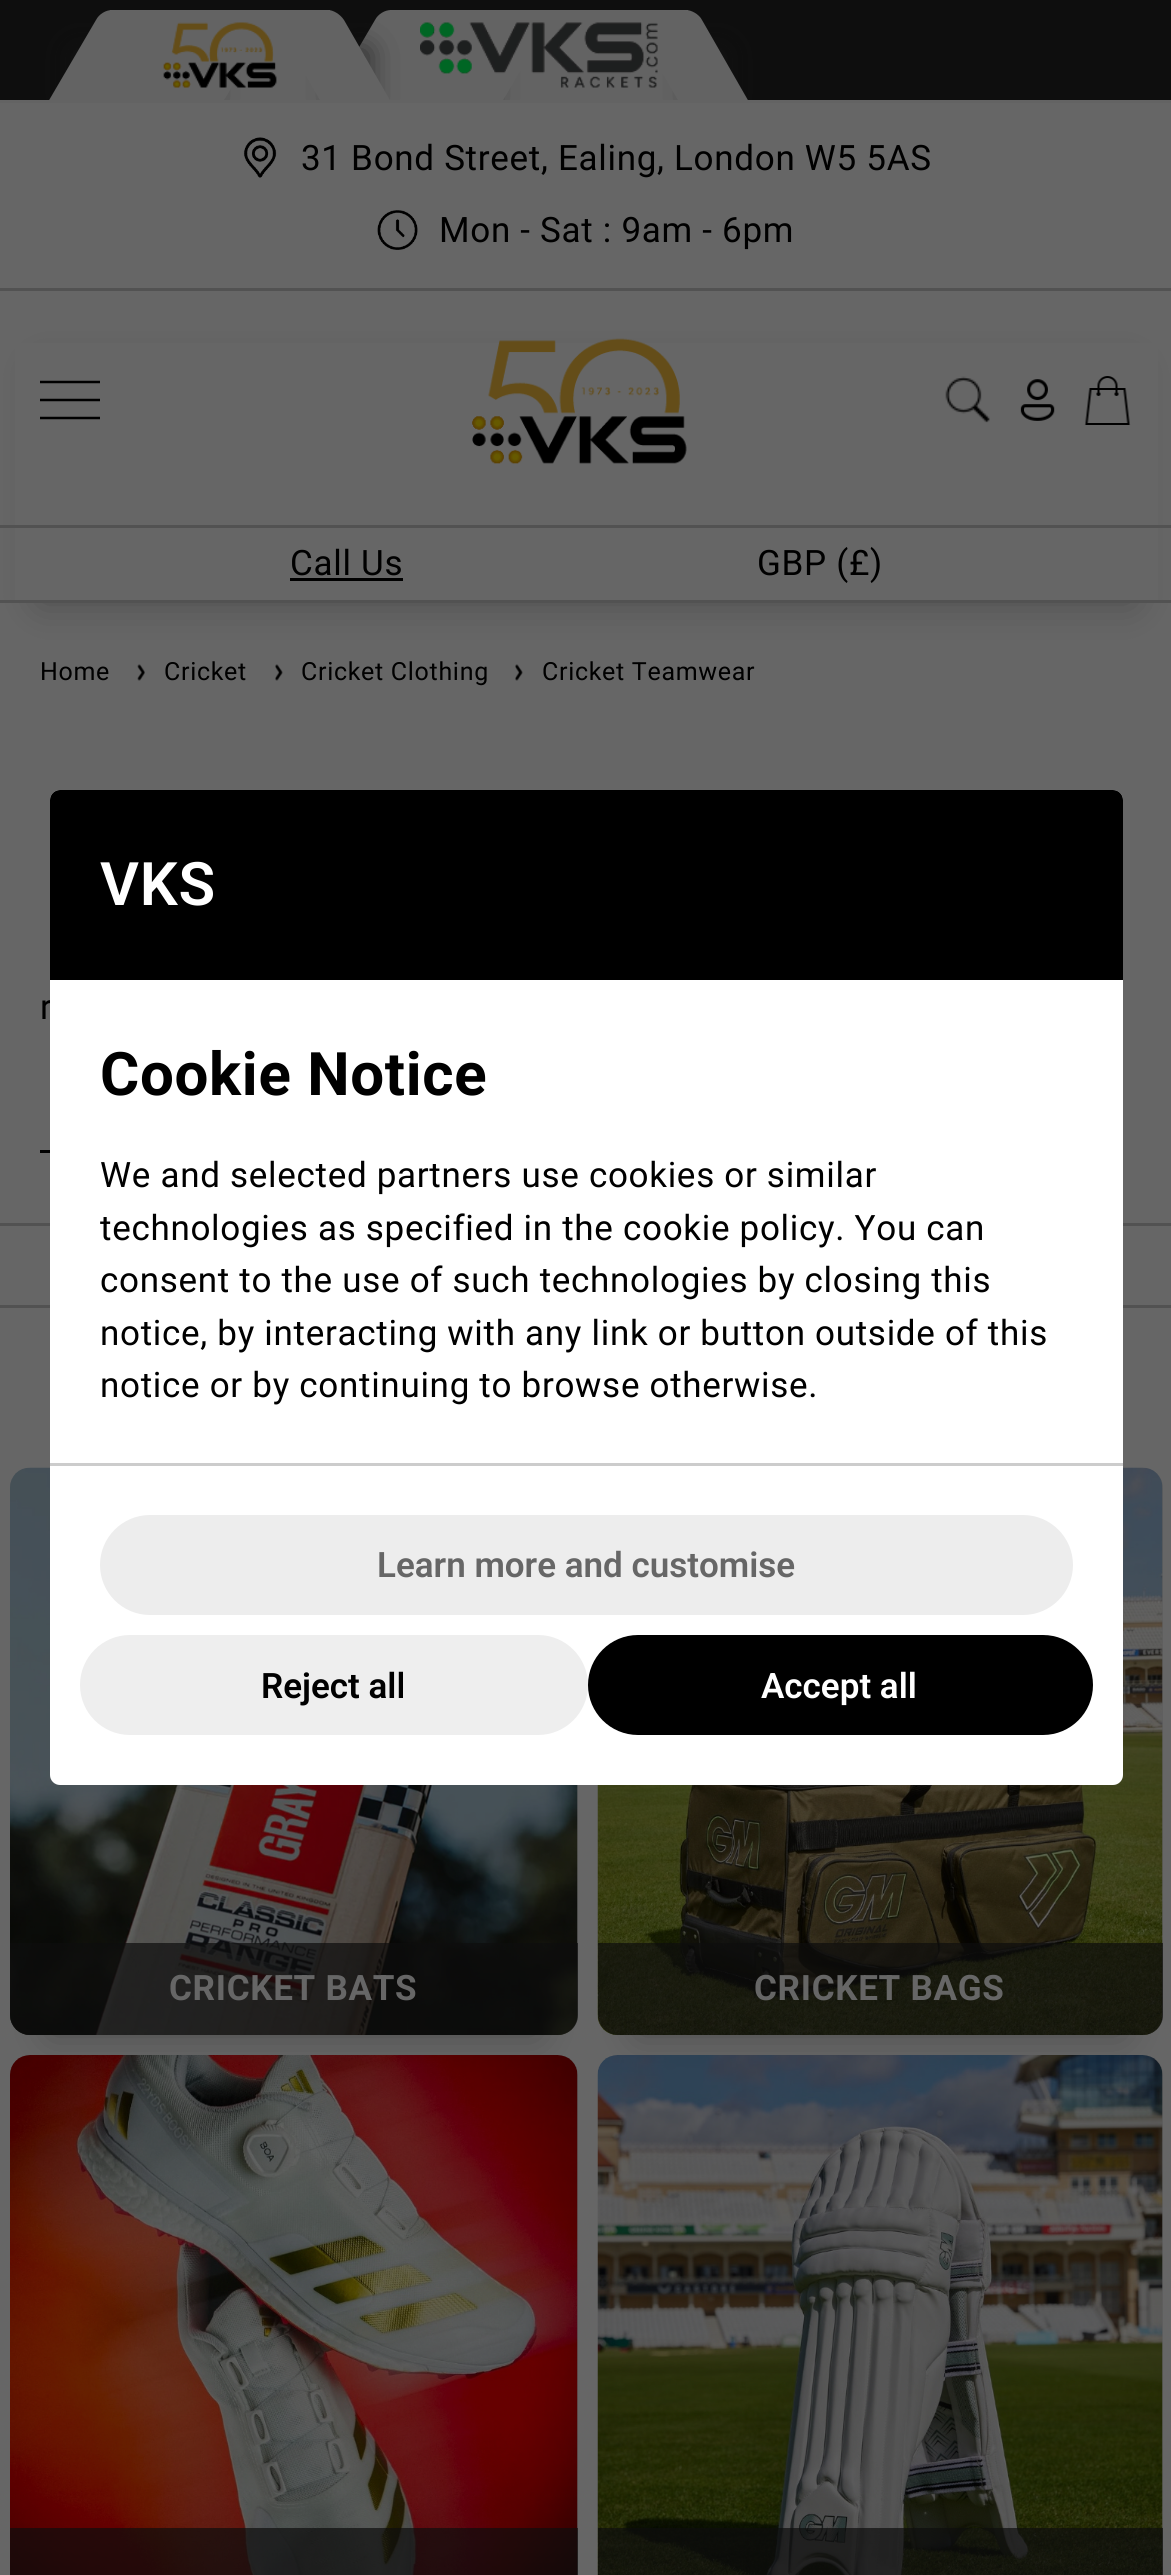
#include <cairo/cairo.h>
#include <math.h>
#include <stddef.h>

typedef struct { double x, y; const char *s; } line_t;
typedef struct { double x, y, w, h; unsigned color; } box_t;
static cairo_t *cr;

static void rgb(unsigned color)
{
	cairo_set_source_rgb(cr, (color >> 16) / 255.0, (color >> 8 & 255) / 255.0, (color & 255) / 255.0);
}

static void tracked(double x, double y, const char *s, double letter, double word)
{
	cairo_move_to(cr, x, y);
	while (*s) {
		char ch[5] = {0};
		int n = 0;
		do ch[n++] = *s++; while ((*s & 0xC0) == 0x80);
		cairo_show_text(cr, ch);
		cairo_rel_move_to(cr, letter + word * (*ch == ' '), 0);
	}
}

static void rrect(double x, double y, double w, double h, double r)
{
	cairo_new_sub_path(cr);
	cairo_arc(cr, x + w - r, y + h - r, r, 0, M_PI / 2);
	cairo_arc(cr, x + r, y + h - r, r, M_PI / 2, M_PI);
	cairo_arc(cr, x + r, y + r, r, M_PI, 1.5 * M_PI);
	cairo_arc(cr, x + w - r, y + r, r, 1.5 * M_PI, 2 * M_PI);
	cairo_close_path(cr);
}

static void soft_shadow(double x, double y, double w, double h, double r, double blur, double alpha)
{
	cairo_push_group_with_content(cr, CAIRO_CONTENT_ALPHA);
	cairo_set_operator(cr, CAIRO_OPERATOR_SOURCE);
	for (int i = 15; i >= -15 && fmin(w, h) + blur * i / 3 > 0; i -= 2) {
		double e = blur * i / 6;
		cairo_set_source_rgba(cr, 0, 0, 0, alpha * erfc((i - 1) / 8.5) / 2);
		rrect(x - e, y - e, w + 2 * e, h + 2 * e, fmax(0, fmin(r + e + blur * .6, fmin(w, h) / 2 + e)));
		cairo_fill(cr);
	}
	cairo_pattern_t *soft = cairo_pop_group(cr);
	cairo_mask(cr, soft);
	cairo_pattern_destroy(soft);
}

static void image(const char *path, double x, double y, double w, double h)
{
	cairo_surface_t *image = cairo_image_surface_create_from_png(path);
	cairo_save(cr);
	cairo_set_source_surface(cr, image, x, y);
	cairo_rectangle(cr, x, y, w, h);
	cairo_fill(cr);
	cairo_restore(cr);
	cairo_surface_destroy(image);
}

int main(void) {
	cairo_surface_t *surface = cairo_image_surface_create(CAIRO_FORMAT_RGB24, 1171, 2575);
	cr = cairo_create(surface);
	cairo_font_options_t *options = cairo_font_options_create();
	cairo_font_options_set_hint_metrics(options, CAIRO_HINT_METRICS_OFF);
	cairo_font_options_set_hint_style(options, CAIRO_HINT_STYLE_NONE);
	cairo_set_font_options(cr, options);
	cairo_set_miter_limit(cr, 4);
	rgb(0x666666);
	cairo_paint(cr);
	{
		static const box_t items[] = {
			{0, 0, 1171, 100, 0x0e0e0e},
			{0, 100, 1171, 3, 0x636363},
			{390, 10, 298, 90, 0x636363},
		};
		for (size_t i = 0; i < sizeof items / sizeof *items; i++) {
			rgb(items[i].color);
			cairo_rectangle(cr, items[i].x, items[i].y, items[i].w, items[i].h);
			cairo_fill(cr);
		}
	}
	cairo_save(cr);
	cairo_rectangle(cr, 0, 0, 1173, 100);
	cairo_clip(cr);
	rgb(0x141414);
	soft_shadow(353, 50, 135, 53, 0, 15, 0.75);
	cairo_restore(cr);
	cairo_save(cr);
	cairo_rectangle(cr, 0, 0, 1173, 100);
	cairo_clip(cr);
	cairo_new_path(cr);
	cairo_move_to(cr, 391, 10);
	cairo_line_to(cr, 556, 10);
	cairo_line_to(cr, 502, 102);
	cairo_line_to(cr, 327, 102);
	cairo_line_to(cr, 375, 20);
	cairo_curve_to(cr, 378, 14, 385, 10, 391, 10);
	cairo_close_path(cr);
	cairo_fill(cr);
	cairo_restore(cr);
	cairo_rectangle(cr, 110, 10, 220, 90);
	cairo_fill(cr);
	image("img/3.png", 243, 137, 34, 41);
	cairo_save(cr);
	cairo_rectangle(cr, 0, 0, 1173, 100);
	cairo_clip(cr);
	rgb(0x141414);
	soft_shadow(73, 50, 135, 53, 0, 15, 0.75);
	cairo_restore(cr);
	cairo_save(cr);
	cairo_rectangle(cr, 0, 0, 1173, 100);
	cairo_clip(cr);
	cairo_new_path(cr);
	cairo_move_to(cr, 112, 10);
	cairo_line_to(cr, 277, 10);
	cairo_line_to(cr, 223, 102);
	cairo_line_to(cr, 48, 102);
	cairo_line_to(cr, 96, 20);
	cairo_curve_to(cr, 99, 14, 106, 10, 112, 10);
	cairo_close_path(cr);
	cairo_fill(cr);
	cairo_restore(cr);
	cairo_save(cr);
	cairo_rectangle(cr, 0, 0, 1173, 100);
	cairo_clip(cr);
	rgb(0x141414);
	soft_shadow(338, 50, 30, 53, 0, 15, 0.75);
	cairo_restore(cr);
	cairo_save(cr);
	cairo_rectangle(cr, 0, 0, 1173, 100);
	cairo_clip(cr);
	cairo_new_path(cr);
	cairo_move_to(cr, 268, 10);
	cairo_line_to(cr, 328, 10);
	cairo_curve_to(cr, 333, 10, 340, 14, 344, 20);
	cairo_line_to(cr, 391, 102);
	cairo_line_to(cr, 321, 102);
	cairo_close_path(cr);
	cairo_fill(cr);
	cairo_restore(cr);
	image("img/1.png", 163, 22, 114, 66);
	cairo_save(cr);
	cairo_rectangle(cr, 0, 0, 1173, 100);
	cairo_clip(cr);
	rgb(0x141414);
	soft_shadow(695, 50, 30, 53, 0, 15, 0.75);
	cairo_restore(cr);
	cairo_save(cr);
	cairo_rectangle(cr, 0, 0, 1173, 100);
	cairo_clip(cr);
	cairo_new_path(cr);
	cairo_move_to(cr, 626, 10);
	cairo_line_to(cr, 686, 10);
	cairo_curve_to(cr, 691, 10, 699, 14, 702, 20);
	cairo_line_to(cr, 749, 102);
	cairo_line_to(cr, 679, 102);
	cairo_close_path(cr);
	cairo_fill(cr);
	cairo_restore(cr);
	image("img/2.png", 420, 22, 238, 66);
	image("img/4.png", 377, 210, 41, 40);
	rgb(0x000000);
	soft_shadow(40, 368, 1093, 235, 0, 20, 0.25);
	{
		static const box_t items[] = {
			{15, 343, 1143, 257, 0x666666},
			{0, 288, 1171, 3, 0x525252},
			{0, 600, 1171, 3, 0x525252},
		};
		for (size_t i = 0; i < sizeof items / sizeof *items; i++) {
			rgb(items[i].color);
			cairo_rectangle(cr, items[i].x, items[i].y, items[i].w, items[i].h);
			cairo_fill(cr);
		}
	}
	image("img/5.png", 40, 380, 60, 40);
	image("img/6.png", 472, 338, 215, 126);
	image("img/7.png", 945, 376, 45, 47);
	image("img/8.png", 1020, 379, 35, 42);
	image("img/9.png", 1084, 376, 47, 49);
	cairo_rectangle(cr, 0, 525, 1171, 3);
	cairo_fill(cr);
	rgb(0x000000);
	cairo_rectangle(cr, 290, 578, 113, 3);
	cairo_fill(cr);
	image("img/10.png", 137, 664, 8, 17);
	image("img/11.png", 275, 664, 8, 17);
	image("img/11.png", 515, 664, 8, 17);
	{
		static const box_t items[] = {
			{40, 1150, 10, 3, 0x000000},
			{0, 1223, 1171, 3, 0x525252},
			{0, 1305, 1171, 3, 0x525252},
		};
		for (size_t i = 0; i < sizeof items / sizeof *items; i++) {
			rgb(items[i].color);
			cairo_rectangle(cr, items[i].x, items[i].y, items[i].w, items[i].h);
			cairo_fill(cr);
		}
	}
	rgb(0x000000);
	soft_shadow(50, 1548, 488, 487, 0, 20, 0.25);
	rgb(0x5f5f5f);
	rrect(10, 1468, 568, 567, 20);
	cairo_fill(cr);
	image("img/12.png", 10, 1467, 568, 568);
	rgb(0x000000);
	soft_shadow(638, 1548, 485, 487, 0, 20, 0.25);
	cairo_set_source_rgba(cr, 0.055, 0.055, 0.055, 0.7);
	cairo_new_path(cr);
	cairo_move_to(cr, 10, 1943);
	cairo_line_to(cr, 578, 1943);
	cairo_line_to(cr, 578, 2015);
	cairo_curve_to(cr, 578, 2026, 569, 2035, 558, 2035);
	cairo_line_to(cr, 30, 2035);
	cairo_curve_to(cr, 19, 2035, 10, 2026, 10, 2015);
	cairo_close_path(cr);
	cairo_fill(cr);
	rgb(0x5f5f5f);
	rrect(598, 1468, 565, 567, 20);
	cairo_fill(cr);
	image("img/13.png", 597, 1467, 566, 568);
	cairo_set_source_rgba(cr, 0.055, 0.055, 0.055, 0.7);
	cairo_new_path(cr);
	cairo_move_to(cr, 598, 1943);
	cairo_line_to(cr, 1163, 1943);
	cairo_line_to(cr, 1163, 2015);
	cairo_curve_to(cr, 1163, 2026, 1154, 2035, 1143, 2035);
	cairo_line_to(cr, 618, 2035);
	cairo_curve_to(cr, 607, 2035, 598, 2026, 598, 2015);
	cairo_close_path(cr);
	cairo_fill(cr);
	rgb(0x5f5f5f);
	rrect(10, 2055, 568, 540, 20);
	cairo_fill(cr);
	image("img/14.png", 10, 2055, 568, 520);
	cairo_set_source_rgba(cr, 0.055, 0.055, 0.055, 0.7);
	cairo_rectangle(cr, 10, 2528, 568, 47);
	cairo_fill(cr);
	rgb(0x5f5f5f);
	rrect(598, 2055, 565, 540, 20);
	cairo_fill(cr);
	image("img/15.png", 597, 2055, 566, 520);
	cairo_set_source_rgba(cr, 0.055, 0.055, 0.055, 0.7);
	cairo_rectangle(cr, 598, 2528, 565, 47);
	cairo_fill(cr);
	cairo_select_font_face(cr, "Roboto", CAIRO_FONT_SLANT_NORMAL, CAIRO_FONT_WEIGHT_NORMAL);
	cairo_set_font_size(cr, 35);
	rgb(0x000000);
	{
		static const line_t items[] = {
			{301, 170, "31 Bond Street, Ealing, London W5 5AS"},
			{439, 242, "Mon - Sat : 9am - 6pm"},
			{290, 575, "Call Us"},
			{757, 575, "GBP (£)"},
		};
		for (size_t i = 0; i < sizeof items / sizeof *items; i++) {
			tracked(items[i].x, items[i].y, items[i].s, 0.7, 0);
		}
	}
	cairo_set_font_size(cr, 25);
	{
		static const line_t items[] = {
			{40, 680, "Home"},
			{164, 680, "Cricket"},
			{301, 680, "Cricket Clothing"},
			{542, 680, "Cricket Teamwear"},
		};
		for (size_t i = 0; i < sizeof items / sizeof *items; i++) {
			tracked(items[i].x, items[i].y, items[i].s, 0.7, 0);
		}
	}
	cairo_set_font_size(cr, 35);
	tracked(40, 1019, "r", 0.7, 0);
	rgb(0xffffff);
	rrect(50, 790, 1073, 995, 10);
	cairo_fill(cr);
	rgb(0x000000);
	cairo_new_path(cr);
	cairo_move_to(cr, 60, 790);
	cairo_line_to(cr, 1113, 790);
	cairo_curve_to(cr, 1118.5, 790, 1123, 794.5, 1123, 800);
	cairo_line_to(cr, 1123, 980);
	cairo_line_to(cr, 50, 980);
	cairo_line_to(cr, 50, 800);
	cairo_curve_to(cr, 50, 794.5, 54.5, 790, 60, 790);
	cairo_close_path(cr);
	cairo_fill(cr);
	cairo_select_font_face(cr, "Roboto SemiBold", CAIRO_FONT_SLANT_NORMAL, CAIRO_FONT_WEIGHT_NORMAL);
	cairo_set_font_size(cr, 60);
	rgb(0xffffff);
	tracked(100, 905, "VKS", 0.7, 0);
	cairo_select_font_face(cr, "Roboto", CAIRO_FONT_SLANT_NORMAL, CAIRO_FONT_WEIGHT_BOLD);
	rgb(0x000000);
	tracked(100, 1095, "Cookie Notice", 0.7, 0);
	cairo_select_font_face(cr, "Roboto", CAIRO_FONT_SLANT_NORMAL, CAIRO_FONT_WEIGHT_NORMAL);
	cairo_set_font_size(cr, 35);
	{
		static const line_t items[] = {
			{100, 1187, "We and selected partners use cookies or similar"},
			{100, 1240, "technologies as specified in the cookie policy. You can"},
			{100, 1292, "consent to the use of such technologies by closing this"},
			{100, 1345, "notice, by interacting with any link or button outside of this"},
			{100, 1397, "notice or by continuing to browse otherwise."},
		};
		for (size_t i = 0; i < sizeof items / sizeof *items; i++) {
			tracked(items[i].x, items[i].y, items[i].s, 0.7, 0);
		}
	}
	rgb(0xcccccc);
	cairo_rectangle(cr, 50, 1463, 1073, 3);
	cairo_fill(cr);
	rgb(0xededed);
	rrect(100, 1515, 973, 100, 50);
	cairo_fill(cr);
	cairo_select_font_face(cr, "Roboto SemiBold", CAIRO_FONT_SLANT_NORMAL, CAIRO_FONT_WEIGHT_NORMAL);
	rgb(0x666666);
	cairo_move_to(cr, 377, 1577);
	cairo_show_text(cr, "Learn more and customise");
	rgb(0xeeeeee);
	rrect(80, 1635, 508, 100, 50);
	cairo_fill(cr);
	rgb(0x000000);
	cairo_move_to(cr, 261, 1698);
	cairo_show_text(cr, "Reject all");
	rrect(588, 1635, 505, 100, 50);
	cairo_fill(cr);
	rgb(0xffffff);
	cairo_move_to(cr, 761, 1698);
	cairo_show_text(cr, "Accept all");
	cairo_select_font_face(cr, "Roboto", CAIRO_FONT_SLANT_NORMAL, CAIRO_FONT_WEIGHT_BOLD);
	rgb(0x666666);
	tracked(169, 2000, "CRICKET BATS", 0.7, 0);
	tracked(754, 2000, "CRICKET BAGS", 0.7, 0);
	cairo_surface_write_to_png(surface, "page.png");
	cairo_font_options_destroy(options);
	cairo_destroy(cr);
	cairo_surface_destroy(surface);
	return 0;
}
